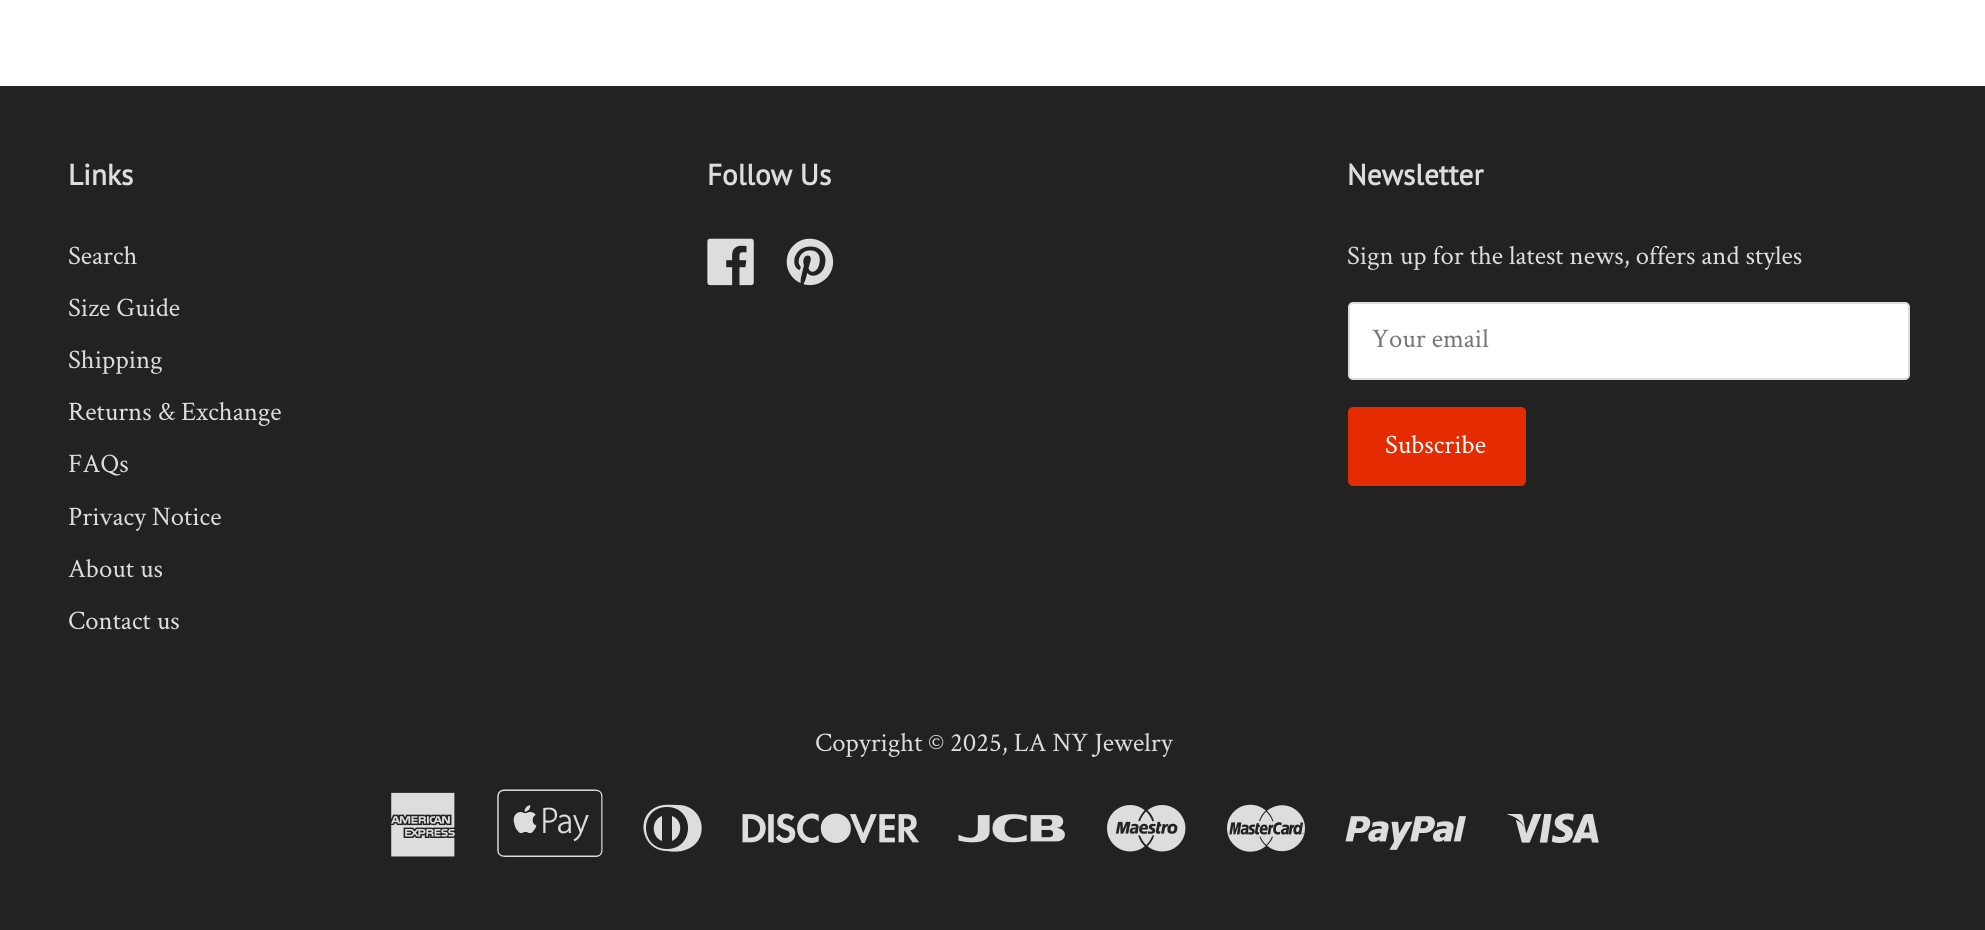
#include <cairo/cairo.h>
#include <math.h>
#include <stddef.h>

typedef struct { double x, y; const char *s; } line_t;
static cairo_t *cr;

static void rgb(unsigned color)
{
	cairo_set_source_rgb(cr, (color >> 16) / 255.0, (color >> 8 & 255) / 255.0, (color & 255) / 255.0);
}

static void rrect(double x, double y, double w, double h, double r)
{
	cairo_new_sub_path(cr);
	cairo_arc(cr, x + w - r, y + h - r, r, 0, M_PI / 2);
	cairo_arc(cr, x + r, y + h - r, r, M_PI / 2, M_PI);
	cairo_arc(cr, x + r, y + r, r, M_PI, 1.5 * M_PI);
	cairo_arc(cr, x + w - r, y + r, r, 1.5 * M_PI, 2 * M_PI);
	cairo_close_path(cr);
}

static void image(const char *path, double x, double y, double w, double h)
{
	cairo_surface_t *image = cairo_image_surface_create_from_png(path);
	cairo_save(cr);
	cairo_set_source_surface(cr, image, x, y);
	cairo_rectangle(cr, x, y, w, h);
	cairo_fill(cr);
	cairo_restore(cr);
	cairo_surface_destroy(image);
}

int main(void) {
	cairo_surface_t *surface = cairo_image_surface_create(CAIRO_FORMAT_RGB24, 1985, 930);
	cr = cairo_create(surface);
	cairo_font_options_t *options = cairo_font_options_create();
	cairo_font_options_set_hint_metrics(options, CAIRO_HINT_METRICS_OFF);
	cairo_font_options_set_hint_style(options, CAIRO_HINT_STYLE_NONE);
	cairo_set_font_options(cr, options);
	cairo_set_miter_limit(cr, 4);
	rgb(0xffffff);
	cairo_paint(cr);
	rgb(0x222222);
	cairo_rectangle(cr, 0, 86, 1985, 844);
	cairo_fill(cr);
	image("img/1.png", 707, 238, 47, 48);
	image("img/2.png", 786, 238, 48, 48);
	rgb(0xffffff);
	rrect(1349, 303, 560, 76, 4);
	cairo_fill_preserve(cr);
	rgb(0xdddddd);
	cairo_stroke(cr);
	rgb(0xe42c00);
	rrect(1348, 407, 178, 79, 5);
	cairo_fill(cr);
	image("img/3.png", 391, 792, 64, 65);
	image("img/4.png", 497, 789, 106, 68);
	rgb(0xdddddd);
	cairo_new_path(cr);
	cairo_move_to(cr, 678, 805);
	cairo_curve_to(cr, 705, 805, 711, 842, 685, 850);
	cairo_curve_to(cr, 680, 852, 673, 852, 667, 851);
	cairo_curve_to(cr, 641, 851, 634, 814, 659, 806);
	cairo_curve_to(cr, 665, 804, 672, 805, 678, 805);
	cairo_close_path(cr);
	cairo_move_to(cr, 667, 849);
	cairo_curve_to(cr, 695, 849, 695, 807, 667, 807);
	cairo_curve_to(cr, 639, 807, 639, 849, 667, 849);
	cairo_close_path(cr);
	cairo_move_to(cr, 662, 841);
	cairo_curve_to(cr, 651, 837, 651, 820, 662, 816);
	cairo_close_path(cr);
	cairo_move_to(cr, 672, 816);
	cairo_curve_to(cr, 683, 820, 683, 836, 672, 841);
	cairo_close_path(cr);
	cairo_fill(cr);
	image("img/5.png", 742, 813, 177, 30);
	image("img/6.png", 958, 814, 107, 29);
	image("img/7.png", 1107, 805, 79, 47);
	image("img/8.png", 1227, 804, 78, 48);
	image("img/9.png", 1345, 816, 121, 34);
	image("img/10.png", 1507, 813, 92, 30);
	cairo_select_font_face(cr, "PT Sans", CAIRO_FONT_SLANT_NORMAL, CAIRO_FONT_WEIGHT_BOLD);
	cairo_set_font_size(cr, 29.25);
	cairo_move_to(cr, 68, 185);
	cairo_show_text(cr, "Links");
	cairo_select_font_face(cr, "Crimson Text", CAIRO_FONT_SLANT_NORMAL, CAIRO_FONT_WEIGHT_NORMAL);
	cairo_set_font_size(cr, 26.75);
	{
		static const line_t items[] = {
			{68, 264, "Search"},
			{68, 316, "Size Guide"},
			{68, 368, "Shipping"},
			{68, 420, "Returns & Exchange"},
			{68, 472, "FAQs"},
			{68, 525, "Privacy Notice"},
			{68, 577, "About us"},
			{68, 629, "Contact us"},
		};
		for (size_t i = 0; i < sizeof items / sizeof *items; i++) {
			cairo_move_to(cr, items[i].x, items[i].y);
			cairo_show_text(cr, items[i].s);
		}
	}
	cairo_select_font_face(cr, "PT Sans", CAIRO_FONT_SLANT_NORMAL, CAIRO_FONT_WEIGHT_BOLD);
	cairo_set_font_size(cr, 29.25);
	cairo_move_to(cr, 707, 185);
	cairo_show_text(cr, "Follow Us");
	cairo_move_to(cr, 1347, 185);
	cairo_show_text(cr, "Newsletter");
	cairo_select_font_face(cr, "Crimson Text", CAIRO_FONT_SLANT_NORMAL, CAIRO_FONT_WEIGHT_NORMAL);
	cairo_set_font_size(cr, 26.75);
	cairo_move_to(cr, 1347, 264);
	cairo_show_text(cr, "Sign up for the latest news, offers and styles");
	rgb(0x757575);
	cairo_move_to(cr, 1372, 347);
	cairo_show_text(cr, "Your email");
	rgb(0xffffff);
	cairo_move_to(cr, 1385, 453);
	cairo_show_text(cr, "Subscribe");
	rgb(0xdddddd);
	cairo_move_to(cr, 815, 751);
	cairo_show_text(cr, "Copyright © 2025, LA NY Jewelry");
	cairo_surface_write_to_png(surface, "page.png");
	cairo_font_options_destroy(options);
	cairo_destroy(cr);
	cairo_surface_destroy(surface);
	return 0;
}
